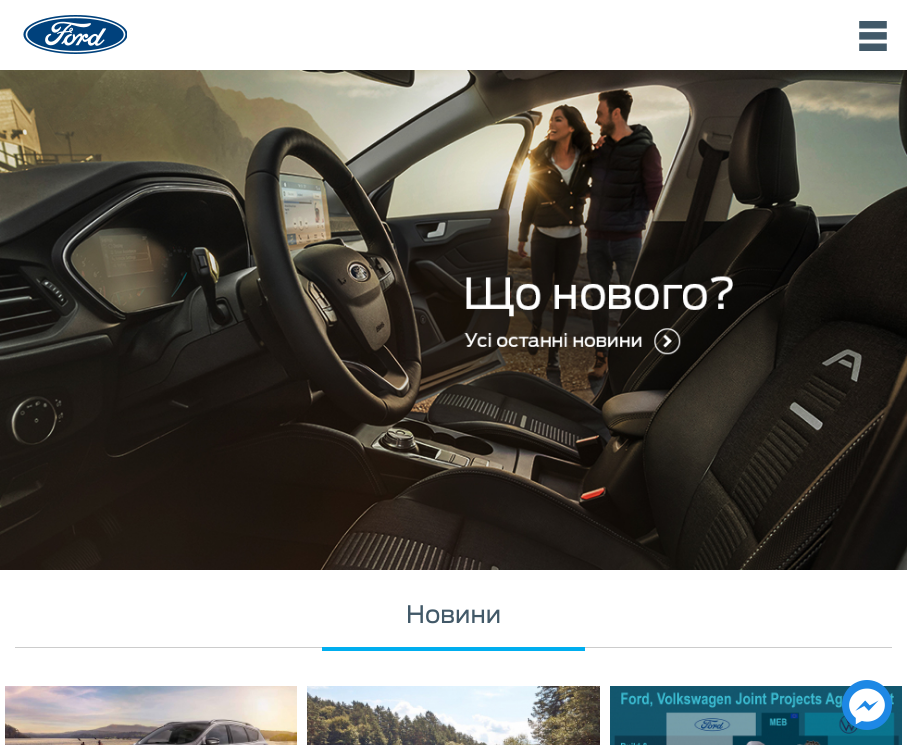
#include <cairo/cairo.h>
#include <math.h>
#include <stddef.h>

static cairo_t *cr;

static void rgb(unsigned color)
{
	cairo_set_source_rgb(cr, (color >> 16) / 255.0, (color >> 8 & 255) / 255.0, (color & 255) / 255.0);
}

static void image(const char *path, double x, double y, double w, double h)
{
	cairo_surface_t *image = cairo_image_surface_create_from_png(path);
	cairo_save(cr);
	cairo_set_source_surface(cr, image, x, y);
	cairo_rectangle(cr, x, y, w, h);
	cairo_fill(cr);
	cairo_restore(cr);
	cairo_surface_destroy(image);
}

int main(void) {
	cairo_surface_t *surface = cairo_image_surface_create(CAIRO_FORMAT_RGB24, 907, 745);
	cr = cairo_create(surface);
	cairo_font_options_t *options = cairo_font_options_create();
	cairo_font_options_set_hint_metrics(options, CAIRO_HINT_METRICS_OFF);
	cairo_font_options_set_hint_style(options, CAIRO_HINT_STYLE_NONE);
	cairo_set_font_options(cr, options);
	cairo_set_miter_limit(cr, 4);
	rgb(0xffffff);
	cairo_paint(cr);
	image("img/1.png", 23, 15, 104, 39);
	image("img/2.png", 859, 21, 28, 30);
	image("img/3.png", 0, 70, 907, 500);
	rgb(0xcccccc);
	cairo_rectangle(cr, 15, 647, 877, 1);
	cairo_fill(cr);
	rgb(0x00aeef);
	cairo_rectangle(cr, 322, 647, 263, 4);
	cairo_fill(cr);
	image("img/4.png", 5, 686, 292, 59);
	image("img/5.png", 307, 686, 293, 59);
	image("img/6.png", 610, 686, 292, 59);
	image("img/7.png", 842, 680, 50, 50);
	cairo_select_font_face(cr, "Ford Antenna", CAIRO_FONT_SLANT_NORMAL, CAIRO_FONT_WEIGHT_NORMAL);
	cairo_set_font_size(cr, 24);
	rgb(0x425968);
	cairo_move_to(cr, 406, 623);
	cairo_show_text(cr, "Новини");
	cairo_surface_write_to_png(surface, "page.png");
	cairo_font_options_destroy(options);
	cairo_destroy(cr);
	cairo_surface_destroy(surface);
	return 0;
}
